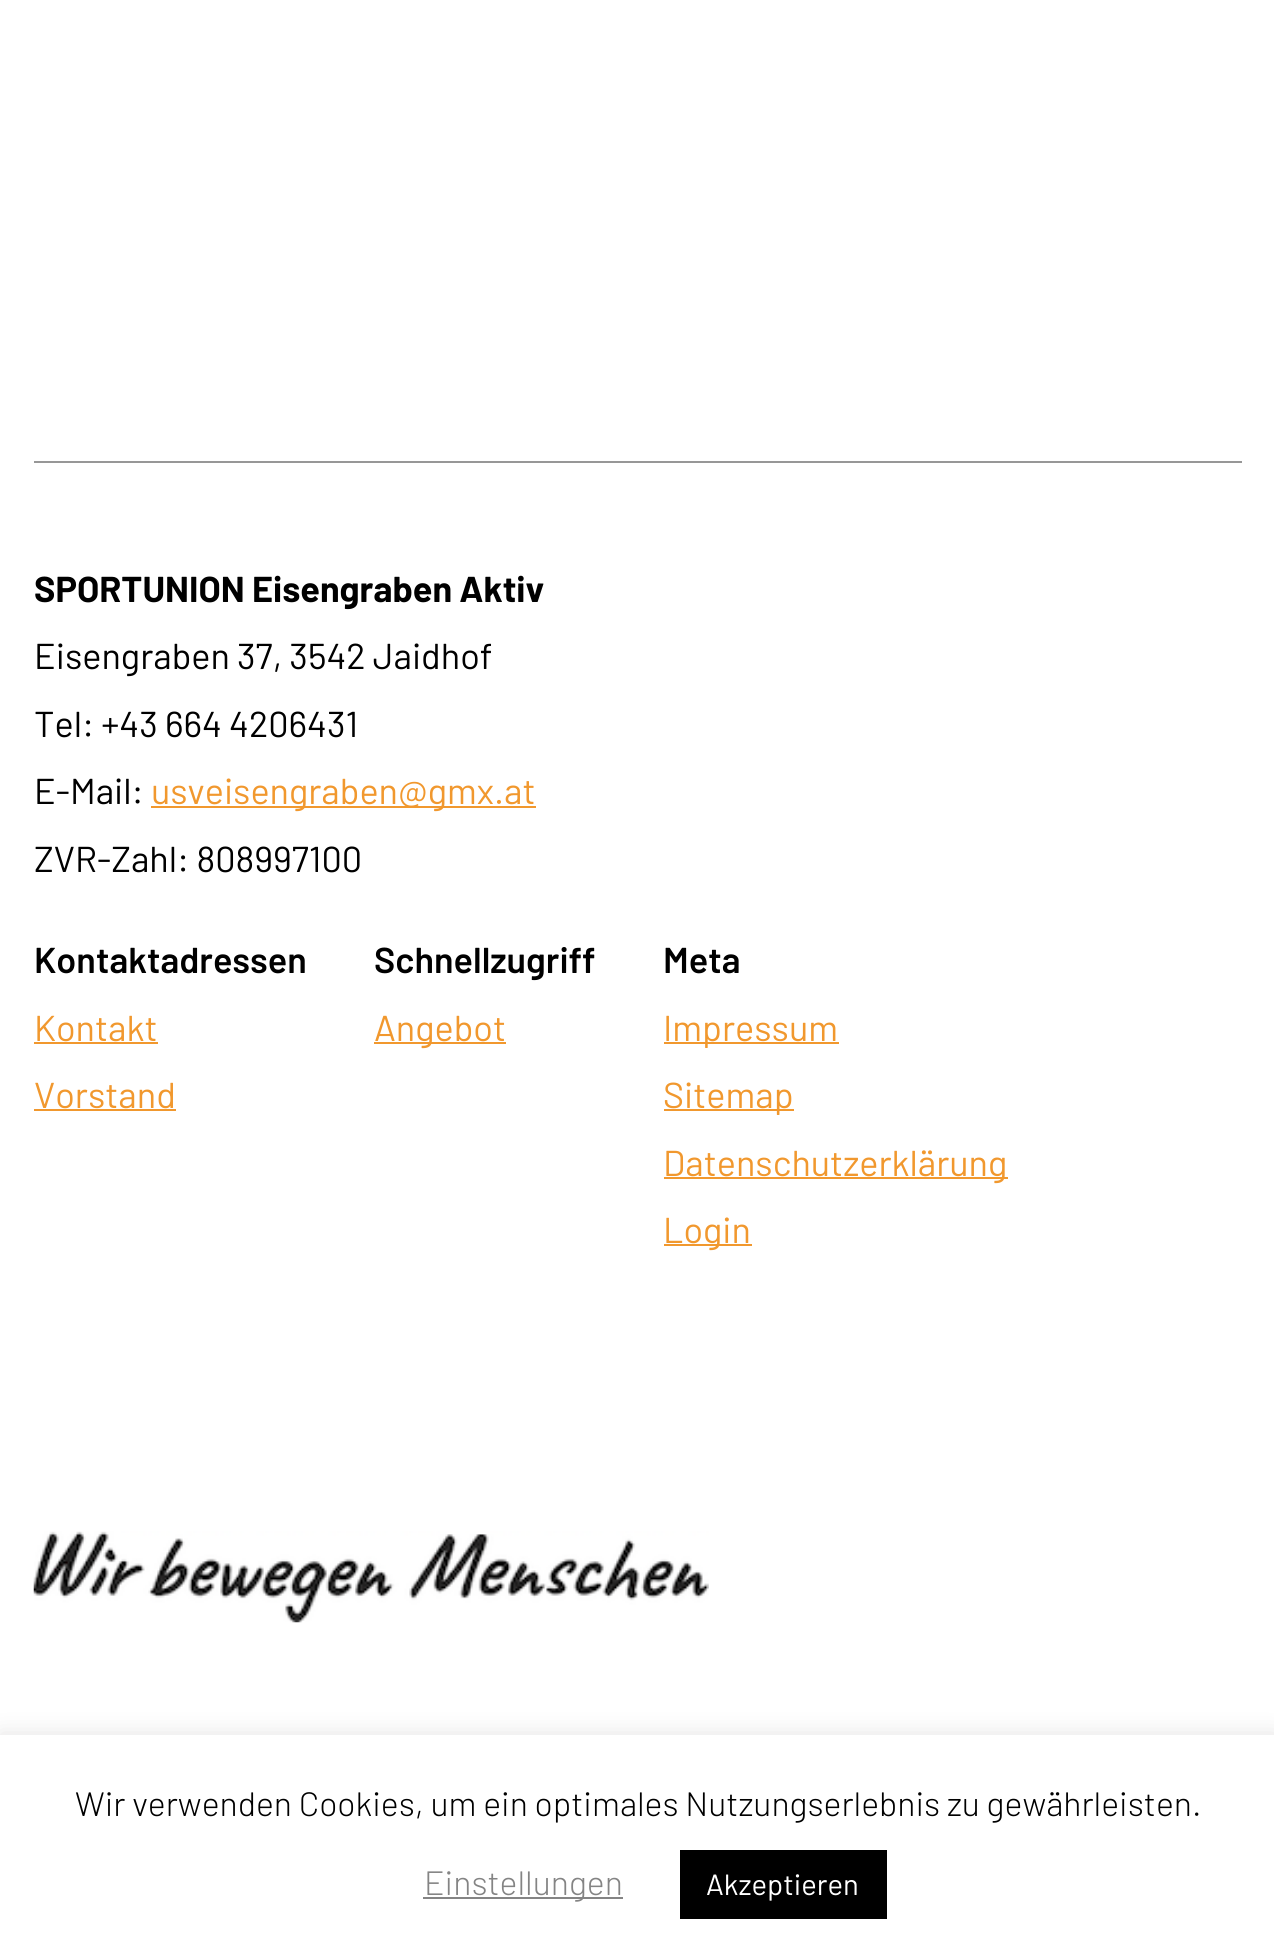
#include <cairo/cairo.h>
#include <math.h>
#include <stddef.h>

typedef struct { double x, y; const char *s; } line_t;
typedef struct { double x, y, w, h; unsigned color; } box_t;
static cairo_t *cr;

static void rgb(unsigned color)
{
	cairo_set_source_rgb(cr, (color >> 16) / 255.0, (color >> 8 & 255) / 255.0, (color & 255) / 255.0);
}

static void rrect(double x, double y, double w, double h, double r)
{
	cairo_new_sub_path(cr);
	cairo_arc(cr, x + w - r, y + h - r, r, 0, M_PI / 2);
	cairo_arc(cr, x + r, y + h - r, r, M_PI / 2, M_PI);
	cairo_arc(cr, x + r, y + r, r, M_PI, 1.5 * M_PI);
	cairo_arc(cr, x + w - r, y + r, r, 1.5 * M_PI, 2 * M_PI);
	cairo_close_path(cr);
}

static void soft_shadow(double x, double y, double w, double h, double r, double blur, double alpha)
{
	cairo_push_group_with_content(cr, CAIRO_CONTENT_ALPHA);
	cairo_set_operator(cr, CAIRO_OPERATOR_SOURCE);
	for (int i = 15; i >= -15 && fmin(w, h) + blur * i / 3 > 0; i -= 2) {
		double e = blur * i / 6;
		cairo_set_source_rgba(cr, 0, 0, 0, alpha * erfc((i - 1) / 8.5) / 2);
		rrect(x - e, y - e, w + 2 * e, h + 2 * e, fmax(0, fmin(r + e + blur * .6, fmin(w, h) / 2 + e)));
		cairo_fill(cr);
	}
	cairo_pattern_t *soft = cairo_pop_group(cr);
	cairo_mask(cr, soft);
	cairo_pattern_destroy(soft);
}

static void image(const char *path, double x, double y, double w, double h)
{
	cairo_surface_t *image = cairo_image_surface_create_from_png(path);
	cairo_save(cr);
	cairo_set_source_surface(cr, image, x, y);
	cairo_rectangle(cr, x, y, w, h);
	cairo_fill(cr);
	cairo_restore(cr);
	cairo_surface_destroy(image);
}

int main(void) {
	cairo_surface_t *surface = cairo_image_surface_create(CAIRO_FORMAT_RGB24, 1274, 1957);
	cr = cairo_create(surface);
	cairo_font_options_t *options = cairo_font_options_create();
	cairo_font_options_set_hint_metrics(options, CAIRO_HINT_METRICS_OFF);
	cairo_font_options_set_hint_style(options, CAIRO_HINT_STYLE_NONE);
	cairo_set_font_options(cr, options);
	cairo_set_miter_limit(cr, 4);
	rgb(0xffffff);
	cairo_paint(cr);
	{
		static const box_t items[] = {
			{34, 461, 1208, 2, 0x979797},
			{151, 806, 385, 2, 0xf1982e},
			{34, 1042, 124, 2, 0xf1982e},
			{34, 1109, 142, 2, 0xf1982e},
			{374, 1042, 132, 2, 0xf1982e},
			{664, 1042, 175, 2, 0xf1982e},
			{664, 1109, 130, 2, 0xf1982e},
			{664, 1177, 344, 2, 0xf1982e},
			{664, 1244, 88, 2, 0xf1982e},
		};
		for (size_t i = 0; i < sizeof items / sizeof *items; i++) {
			rgb(items[i].color);
			cairo_rectangle(cr, items[i].x, items[i].y, items[i].w, items[i].h);
			cairo_fill(cr);
		}
	}
	image("img/1.png", 33, 1531, 676, 92);
	rgb(0xacabab);
	soft_shadow(0, 1733, 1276, 222, 0, 11, 0.3);
	{
		static const box_t items[] = {
			{0, 1735, 1274, 222, 0xffffff},
			{423, 1897, 200, 2, 0x848484},
			{680, 1850, 207, 69, 0x000000},
		};
		for (size_t i = 0; i < sizeof items / sizeof *items; i++) {
			rgb(items[i].color);
			cairo_rectangle(cr, items[i].x, items[i].y, items[i].w, items[i].h);
			cairo_fill(cr);
		}
	}
	cairo_select_font_face(cr, "Barlow", CAIRO_FONT_SLANT_NORMAL, CAIRO_FONT_WEIGHT_BOLD);
	cairo_set_font_size(cr, 36);
	cairo_move_to(cr, 34, 602);
	cairo_show_text(cr, "SPORTUNION Eisengraben Aktiv");
	cairo_select_font_face(cr, "Barlow", CAIRO_FONT_SLANT_NORMAL, CAIRO_FONT_WEIGHT_NORMAL);
	{
		static const line_t items[] = {
			{34, 669, "Eisengraben 37, 3542 Jaidhof"},
			{34, 737, "Tel: +43 664 4206431"},
			{34, 804, "E-Mail:"},
		};
		for (size_t i = 0; i < sizeof items / sizeof *items; i++) {
			cairo_move_to(cr, items[i].x, items[i].y);
			cairo_show_text(cr, items[i].s);
		}
	}
	rgb(0xf1982e);
	cairo_move_to(cr, 151, 804);
	cairo_show_text(cr, "usveisengraben@gmx.at");
	rgb(0x000000);
	cairo_move_to(cr, 34, 872);
	cairo_show_text(cr, "ZVR-Zahl: 808997100");
	cairo_select_font_face(cr, "Barlow SemiBold", CAIRO_FONT_SLANT_NORMAL, CAIRO_FONT_WEIGHT_NORMAL);
	cairo_move_to(cr, 34, 973);
	cairo_show_text(cr, "Kontaktadressen");
	cairo_select_font_face(cr, "Barlow", CAIRO_FONT_SLANT_NORMAL, CAIRO_FONT_WEIGHT_NORMAL);
	rgb(0xf1982e);
	cairo_move_to(cr, 34, 1041);
	cairo_show_text(cr, "Kontakt");
	cairo_move_to(cr, 34, 1108);
	cairo_show_text(cr, "Vorstand");
	cairo_select_font_face(cr, "Barlow SemiBold", CAIRO_FONT_SLANT_NORMAL, CAIRO_FONT_WEIGHT_NORMAL);
	rgb(0x000000);
	cairo_move_to(cr, 374, 973);
	cairo_show_text(cr, "Schnellzugriff");
	cairo_select_font_face(cr, "Barlow", CAIRO_FONT_SLANT_NORMAL, CAIRO_FONT_WEIGHT_NORMAL);
	rgb(0xf1982e);
	cairo_move_to(cr, 374, 1041);
	cairo_show_text(cr, "Angebot");
	cairo_select_font_face(cr, "Barlow SemiBold", CAIRO_FONT_SLANT_NORMAL, CAIRO_FONT_WEIGHT_NORMAL);
	rgb(0x000000);
	cairo_move_to(cr, 663, 973);
	cairo_show_text(cr, "Meta");
	cairo_select_font_face(cr, "Barlow", CAIRO_FONT_SLANT_NORMAL, CAIRO_FONT_WEIGHT_NORMAL);
	rgb(0xf1982e);
	{
		static const line_t items[] = {
			{663, 1041, "Impressum"},
			{663, 1108, "Sitemap"},
			{663, 1176, "Datenschutzerklärung"},
			{663, 1243, "Login"},
		};
		for (size_t i = 0; i < sizeof items / sizeof *items; i++) {
			cairo_move_to(cr, items[i].x, items[i].y);
			cairo_show_text(cr, items[i].s);
		}
	}
	cairo_select_font_face(cr, "Barlow Light", CAIRO_FONT_SLANT_NORMAL, CAIRO_FONT_WEIGHT_NORMAL);
	cairo_set_font_size(cr, 33.75);
	rgb(0x000000);
	cairo_move_to(cr, 75, 1816);
	cairo_show_text(cr, "Wir verwenden Cookies, um ein optimales Nutzungserlebnis zu gewährleisten.");
	rgb(0x848484);
	cairo_move_to(cr, 424, 1895);
	cairo_show_text(cr, "Einstellungen");
	cairo_select_font_face(cr, "Barlow", CAIRO_FONT_SLANT_NORMAL, CAIRO_FONT_WEIGHT_NORMAL);
	cairo_set_font_size(cr, 29.25);
	rgb(0xffffff);
	cairo_move_to(cr, 706, 1895);
	cairo_show_text(cr, "Akzeptieren");
	cairo_surface_write_to_png(surface, "page.png");
	cairo_font_options_destroy(options);
	cairo_destroy(cr);
	cairo_surface_destroy(surface);
	return 0;
}
